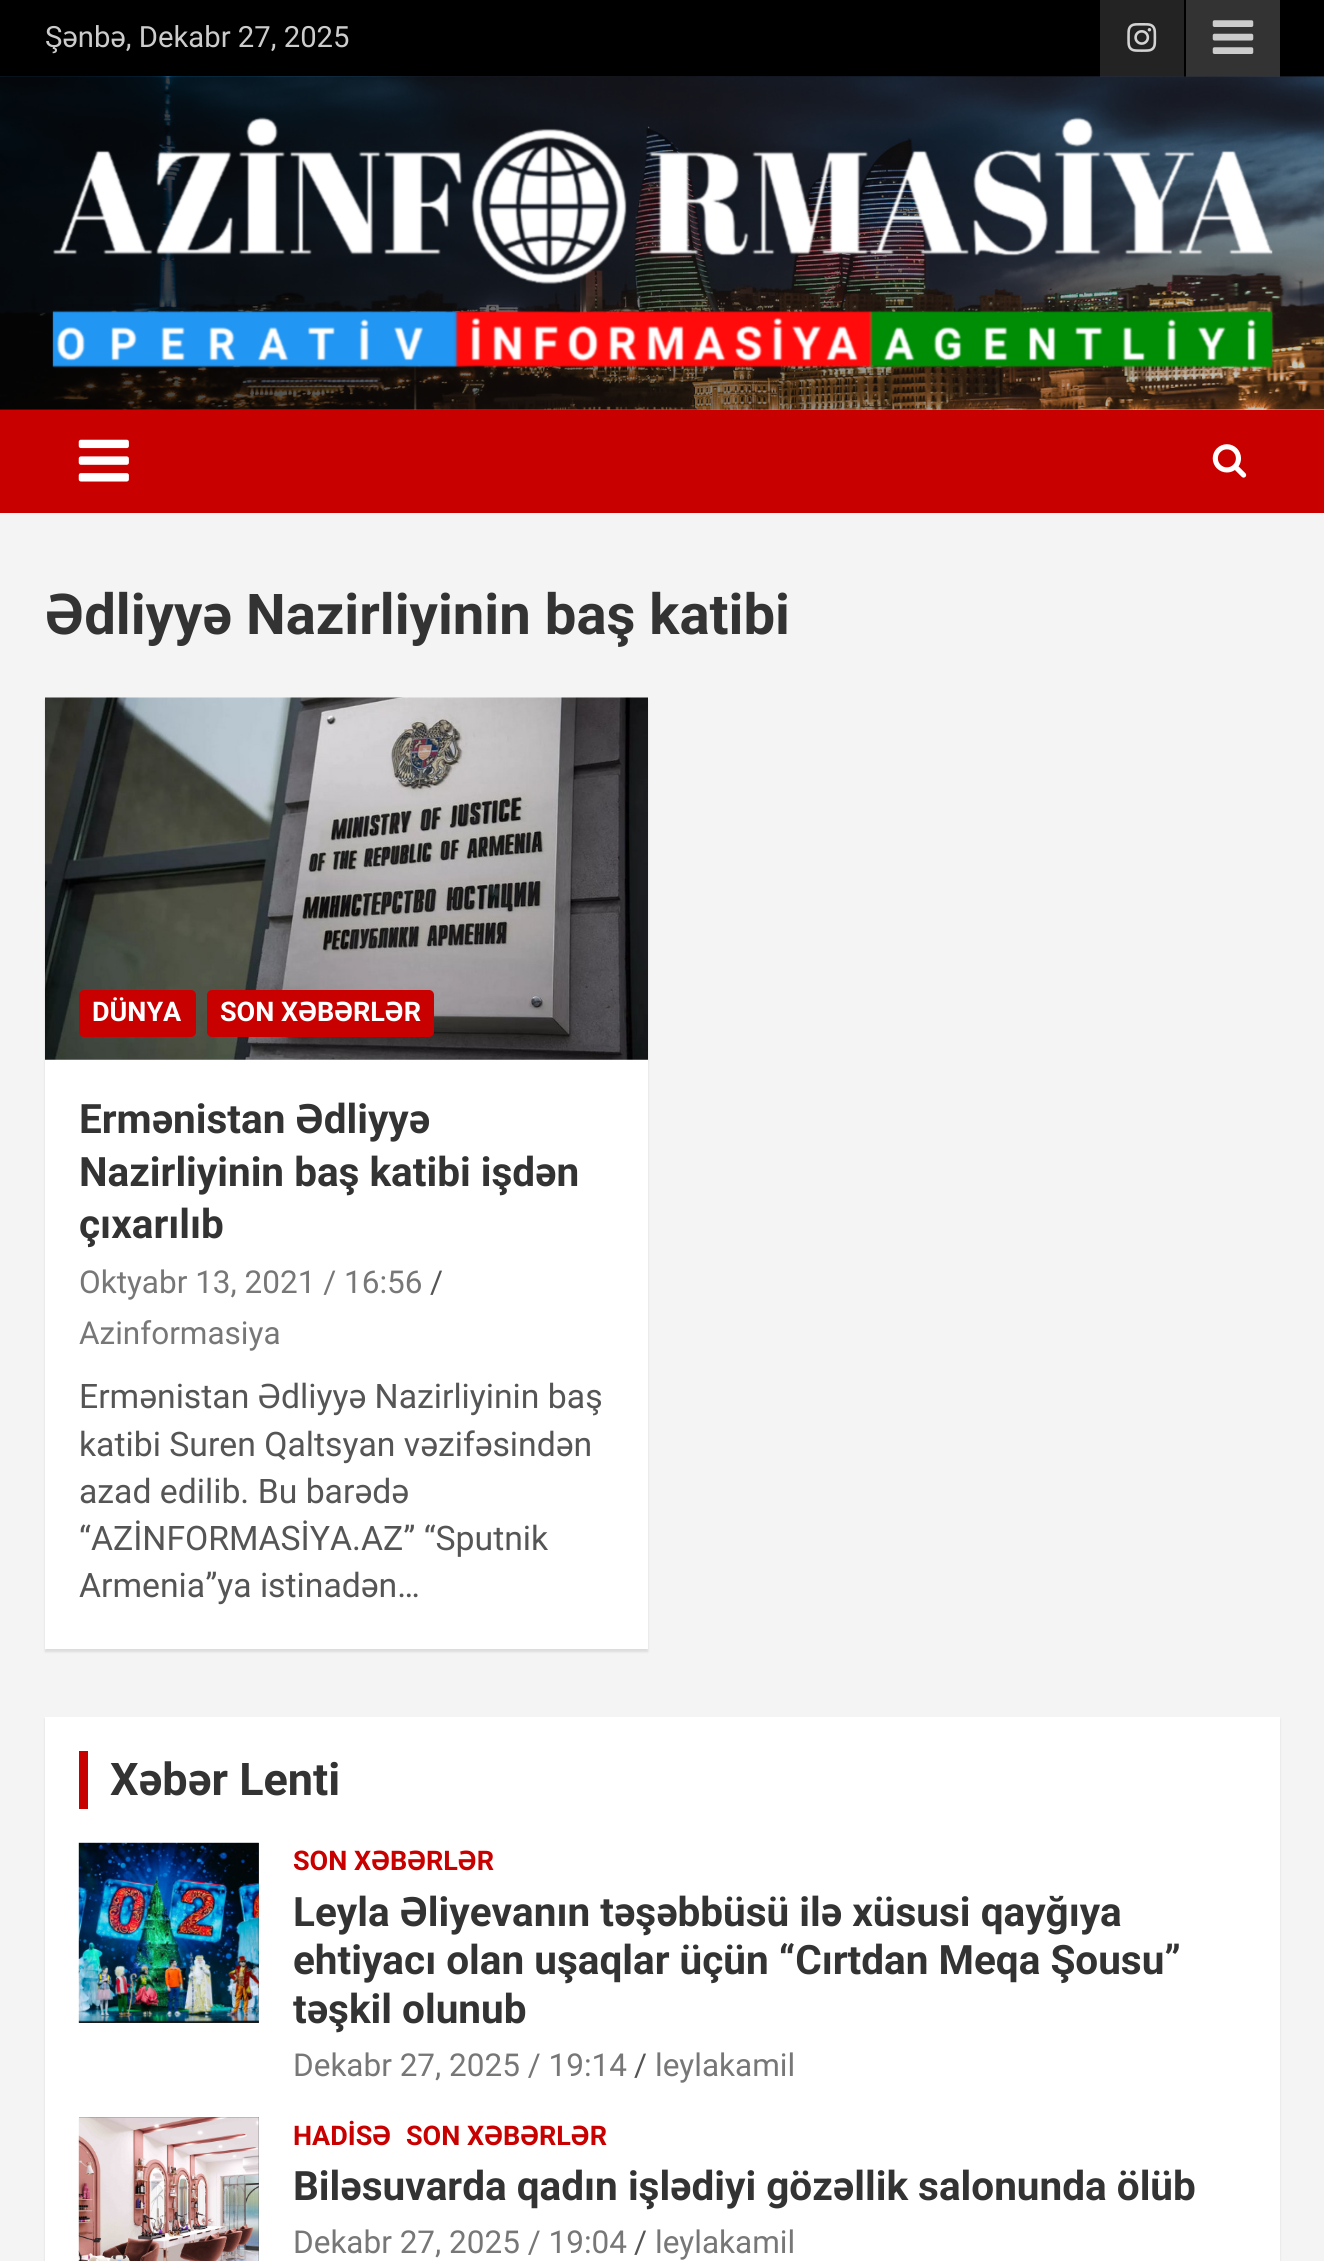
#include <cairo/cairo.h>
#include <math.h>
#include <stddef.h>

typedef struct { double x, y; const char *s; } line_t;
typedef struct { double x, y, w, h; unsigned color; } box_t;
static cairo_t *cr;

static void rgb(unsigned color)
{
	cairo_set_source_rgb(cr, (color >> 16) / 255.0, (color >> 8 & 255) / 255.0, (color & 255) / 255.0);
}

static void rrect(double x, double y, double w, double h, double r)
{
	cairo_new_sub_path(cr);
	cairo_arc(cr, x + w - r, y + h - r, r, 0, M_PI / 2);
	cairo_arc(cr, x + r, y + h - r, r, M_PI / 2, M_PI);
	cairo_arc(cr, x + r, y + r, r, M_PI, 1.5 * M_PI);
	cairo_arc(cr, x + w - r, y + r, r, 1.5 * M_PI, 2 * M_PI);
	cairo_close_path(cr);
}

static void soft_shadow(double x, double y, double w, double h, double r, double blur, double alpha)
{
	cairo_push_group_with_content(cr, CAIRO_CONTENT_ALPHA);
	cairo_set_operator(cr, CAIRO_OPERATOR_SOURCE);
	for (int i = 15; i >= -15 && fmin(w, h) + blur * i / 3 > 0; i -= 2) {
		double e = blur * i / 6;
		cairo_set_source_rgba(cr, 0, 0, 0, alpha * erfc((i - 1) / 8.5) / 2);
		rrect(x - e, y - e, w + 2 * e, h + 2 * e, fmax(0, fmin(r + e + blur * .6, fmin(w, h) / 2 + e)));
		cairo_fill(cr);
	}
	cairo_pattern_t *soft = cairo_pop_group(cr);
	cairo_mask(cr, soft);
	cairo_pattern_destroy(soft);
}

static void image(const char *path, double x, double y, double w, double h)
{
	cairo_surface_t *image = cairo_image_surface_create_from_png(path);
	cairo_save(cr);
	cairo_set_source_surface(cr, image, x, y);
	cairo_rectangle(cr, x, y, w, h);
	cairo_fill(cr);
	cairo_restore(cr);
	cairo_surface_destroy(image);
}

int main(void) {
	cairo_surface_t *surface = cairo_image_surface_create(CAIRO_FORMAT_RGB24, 1324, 2261);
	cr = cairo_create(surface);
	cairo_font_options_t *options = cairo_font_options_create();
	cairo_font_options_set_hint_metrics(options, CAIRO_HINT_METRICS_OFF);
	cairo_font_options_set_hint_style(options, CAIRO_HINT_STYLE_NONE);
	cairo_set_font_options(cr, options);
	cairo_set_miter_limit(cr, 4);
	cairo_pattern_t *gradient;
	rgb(0xf4f4f4);
	cairo_paint(cr);
	rgb(0x000000);
	cairo_rectangle(cr, 0, 0, 1324, 77);
	cairo_fill(cr);
	rgb(0x232323);
	cairo_rectangle(cr, 1100, 0, 84, 77);
	cairo_fill(cr);
	image("img/1.png", 1127, 23, 30, 29);
	rgb(0x333333);
	cairo_rectangle(cr, 1186, 0, 94, 77);
	cairo_fill(cr);
	image("img/2.png", 1212, 20, 42, 34);
	rgb(0xffffff);
	cairo_rectangle(cr, 0, 409, 1324, 1);
	cairo_fill(cr);
	image("img/3.png", 0, 76, 1324, 334);
	gradient = cairo_pattern_create_linear(0, 243, 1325, 243);
	cairo_pattern_add_color_stop_rgba(gradient, 0, 0, 0, 0, 0.8);
	cairo_pattern_add_color_stop_rgba(gradient, 1, 0, 0, 0, 0.2);
	cairo_set_source(cr, gradient);
	cairo_pattern_destroy(gradient);
	cairo_rectangle(cr, 0, 77, 1324, 333);
	cairo_fill(cr);
	image("img/4.png", 52, 117, 1221, 252);
	rgb(0xc80000);
	cairo_rectangle(cr, 0, 410, 1324, 103);
	cairo_fill(cr);
	image("img/5.png", 78, 439, 51, 43);
	image("img/6.png", 1212, 444, 35, 34);
	rgb(0x000000);
	soft_shadow(45, 700, 603, 952, 0, 1, 0.1);
	rgb(0xffffff);
	cairo_rectangle(cr, 45, 1059, 603, 590);
	cairo_fill(cr);
	image("img/7.png", 45, 697, 603, 363);
	rgb(0xc80000);
	rrect(79, 990, 117, 47, 5);
	cairo_fill(cr);
	rrect(207, 990, 227, 47, 5);
	cairo_fill(cr);
	rgb(0x000000);
	soft_shadow(45, 1719, 1235, 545, 0, 1, 0.1);
	{
		static const box_t items[] = {
			{45, 1717, 1235, 544, 0xffffff},
			{79, 1751, 9, 58, 0xc80000},
			{79, 1843, 180, 180, 0x555555},
		};
		for (size_t i = 0; i < sizeof items / sizeof *items; i++) {
			rgb(items[i].color);
			cairo_rectangle(cr, items[i].x, items[i].y, items[i].w, items[i].h);
			cairo_fill(cr);
		}
	}
	image("img/8.png", 78, 1842, 181, 181);
	cairo_rectangle(cr, 79, 2117, 180, 144);
	cairo_fill(cr);
	image("img/9.png", 78, 2117, 181, 144);
	cairo_select_font_face(cr, "Roboto", CAIRO_FONT_SLANT_NORMAL, CAIRO_FONT_WEIGHT_NORMAL);
	cairo_set_font_size(cr, 29.25);
	rgb(0xcccccc);
	cairo_move_to(cr, 45, 47);
	cairo_show_text(cr, "Şənbə, Dekabr 27, 2025");
	cairo_select_font_face(cr, "Roboto", CAIRO_FONT_SLANT_NORMAL, CAIRO_FONT_WEIGHT_BOLD);
	cairo_set_font_size(cr, 56.25);
	rgb(0x333333);
	cairo_move_to(cr, 45, 634);
	cairo_show_text(cr, "Ədliyyə Nazirliyinin baş katibi");
	cairo_set_font_size(cr, 27);
	rgb(0xffffff);
	cairo_move_to(cr, 92, 1021);
	cairo_show_text(cr, "DÜNYA");
	cairo_move_to(cr, 220, 1021);
	cairo_show_text(cr, "SON XƏBƏRLƏR");
	cairo_set_font_size(cr, 40.5);
	rgb(0x333333);
	{
		static const line_t items[] = {
			{79, 1133, "Ermənistan Ədliyyə"},
			{79, 1186, "Nazirliyinin baş katibi işdən"},
			{79, 1238, "çıxarılıb"},
		};
		for (size_t i = 0; i < sizeof items / sizeof *items; i++) {
			cairo_move_to(cr, items[i].x, items[i].y);
			cairo_show_text(cr, items[i].s);
		}
	}
	cairo_select_font_face(cr, "Roboto", CAIRO_FONT_SLANT_NORMAL, CAIRO_FONT_WEIGHT_NORMAL);
	cairo_set_font_size(cr, 31.5);
	rgb(0x777777);
	cairo_move_to(cr, 79, 1293);
	cairo_show_text(cr, "Oktyabr 13, 2021 / 16:56");
	rgb(0x555555);
	cairo_move_to(cr, 430, 1293);
	cairo_show_text(cr, "/");
	rgb(0x777777);
	cairo_move_to(cr, 79, 1344);
	cairo_show_text(cr, "Azinformasiya");
	cairo_set_font_size(cr, 33.75);
	rgb(0x555555);
	{
		static const line_t items[] = {
			{79, 1408, "Ermənistan Ədliyyə Nazirliyinin baş"},
			{79, 1456, "katibi Suren Qaltsyan vəzifəsindən"},
			{79, 1503, "azad edilib. Bu barədə"},
			{79, 1550, "“AZİNFORMASİYA.AZ” “Sputnik"},
			{79, 1597, "Armenia”ya istinadən…"},
		};
		for (size_t i = 0; i < sizeof items / sizeof *items; i++) {
			cairo_move_to(cr, items[i].x, items[i].y);
			cairo_show_text(cr, items[i].s);
		}
	}
	cairo_select_font_face(cr, "Roboto", CAIRO_FONT_SLANT_NORMAL, CAIRO_FONT_WEIGHT_BOLD);
	cairo_set_font_size(cr, 45);
	rgb(0x333333);
	cairo_move_to(cr, 110, 1795);
	cairo_show_text(cr, "Xəbər Lenti");
	cairo_set_font_size(cr, 27);
	rgb(0xc80000);
	cairo_move_to(cr, 293, 1870);
	cairo_show_text(cr, "SON XƏBƏRLƏR");
	cairo_set_font_size(cr, 40.5);
	rgb(0x333333);
	cairo_move_to(cr, 293, 1926);
	cairo_show_text(cr, "Leyla Əliyevanın təşəbbüsü ilə xüsusi qayğıya");
	cairo_move_to(cr, 293, 1974);
	cairo_show_text(cr, "ehtiyacı olan uşaqlar üçün “Cırtdan Meqa Şousu”");
	cairo_save(cr);
	cairo_rectangle(cr, 293, 1843, 954, 274);
	cairo_clip(cr);
	cairo_move_to(cr, 293, 2023);
	cairo_show_text(cr, "təşkil olunub");
	cairo_restore(cr);
	cairo_select_font_face(cr, "Roboto", CAIRO_FONT_SLANT_NORMAL, CAIRO_FONT_WEIGHT_NORMAL);
	cairo_set_font_size(cr, 31.5);
	rgb(0x777777);
	cairo_move_to(cr, 293, 2076);
	cairo_show_text(cr, "Dekabr 27, 2025 / 19:14");
	rgb(0x555555);
	cairo_move_to(cr, 634, 2076);
	cairo_show_text(cr, "/");
	rgb(0x777777);
	cairo_move_to(cr, 655, 2076);
	cairo_show_text(cr, "leylakamil");
	cairo_select_font_face(cr, "Roboto", CAIRO_FONT_SLANT_NORMAL, CAIRO_FONT_WEIGHT_BOLD);
	cairo_set_font_size(cr, 27);
	rgb(0xc80000);
	cairo_move_to(cr, 293, 2145);
	cairo_show_text(cr, "HADİSƏ");
	cairo_move_to(cr, 406, 2145);
	cairo_show_text(cr, "SON XƏBƏRLƏR");
	cairo_set_font_size(cr, 40.5);
	rgb(0x333333);
	cairo_move_to(cr, 293, 2200);
	cairo_show_text(cr, "Biləsuvarda qadın işlədiyi gözəllik salonunda ölüb");
	cairo_select_font_face(cr, "Roboto", CAIRO_FONT_SLANT_NORMAL, CAIRO_FONT_WEIGHT_NORMAL);
	cairo_set_font_size(cr, 31.5);
	rgb(0x777777);
	cairo_move_to(cr, 293, 2253);
	cairo_show_text(cr, "Dekabr 27, 2025 / 19:04");
	rgb(0x555555);
	cairo_move_to(cr, 634, 2253);
	cairo_show_text(cr, "/");
	rgb(0x777777);
	cairo_move_to(cr, 655, 2253);
	cairo_show_text(cr, "leylakamil");
	cairo_surface_write_to_png(surface, "page.png");
	cairo_font_options_destroy(options);
	cairo_destroy(cr);
	cairo_surface_destroy(surface);
	return 0;
}
